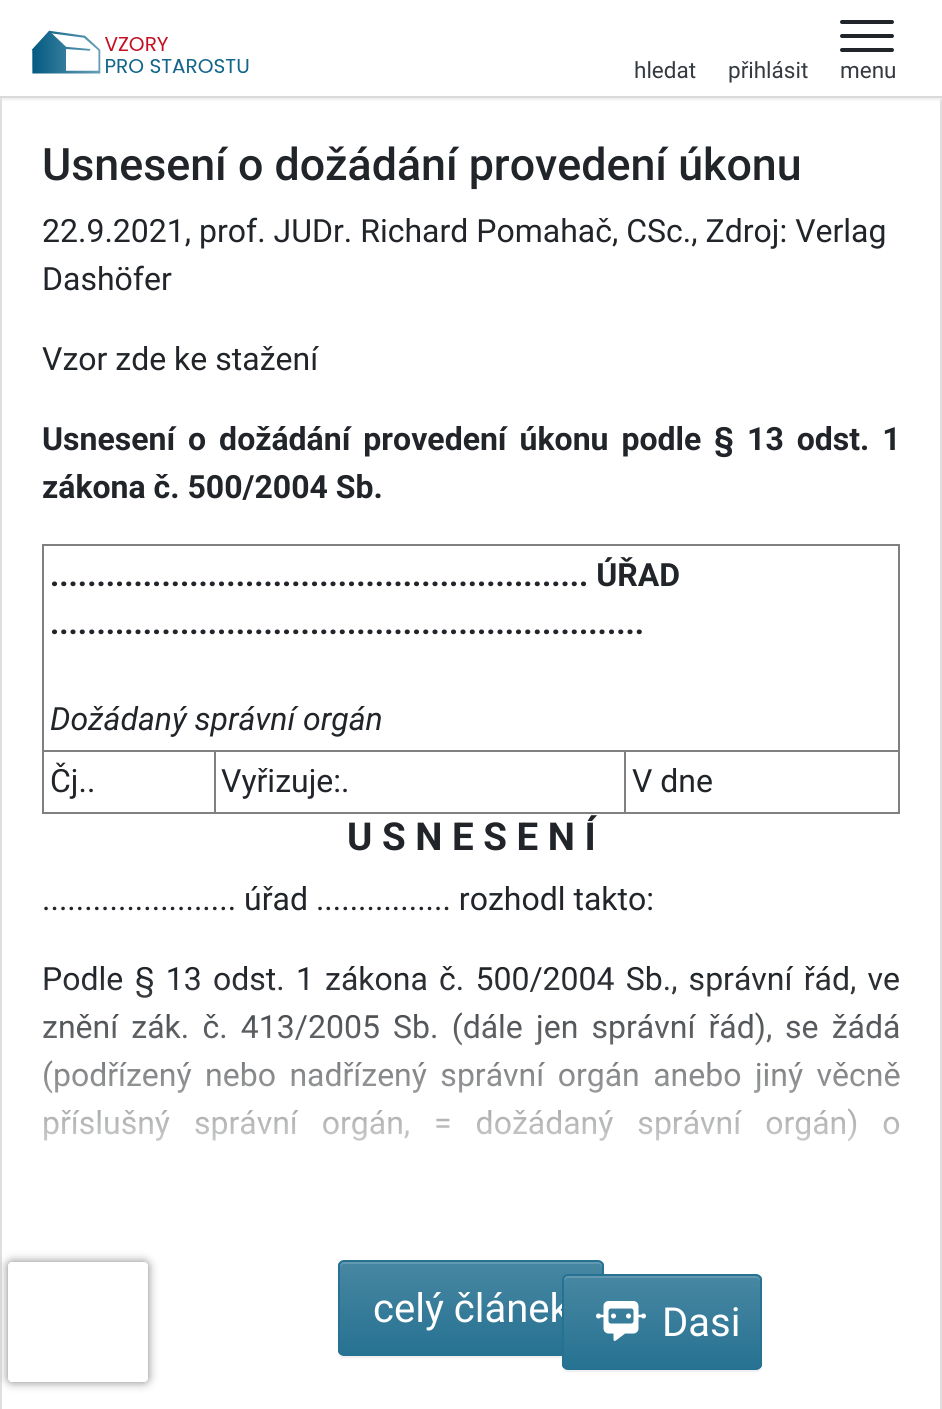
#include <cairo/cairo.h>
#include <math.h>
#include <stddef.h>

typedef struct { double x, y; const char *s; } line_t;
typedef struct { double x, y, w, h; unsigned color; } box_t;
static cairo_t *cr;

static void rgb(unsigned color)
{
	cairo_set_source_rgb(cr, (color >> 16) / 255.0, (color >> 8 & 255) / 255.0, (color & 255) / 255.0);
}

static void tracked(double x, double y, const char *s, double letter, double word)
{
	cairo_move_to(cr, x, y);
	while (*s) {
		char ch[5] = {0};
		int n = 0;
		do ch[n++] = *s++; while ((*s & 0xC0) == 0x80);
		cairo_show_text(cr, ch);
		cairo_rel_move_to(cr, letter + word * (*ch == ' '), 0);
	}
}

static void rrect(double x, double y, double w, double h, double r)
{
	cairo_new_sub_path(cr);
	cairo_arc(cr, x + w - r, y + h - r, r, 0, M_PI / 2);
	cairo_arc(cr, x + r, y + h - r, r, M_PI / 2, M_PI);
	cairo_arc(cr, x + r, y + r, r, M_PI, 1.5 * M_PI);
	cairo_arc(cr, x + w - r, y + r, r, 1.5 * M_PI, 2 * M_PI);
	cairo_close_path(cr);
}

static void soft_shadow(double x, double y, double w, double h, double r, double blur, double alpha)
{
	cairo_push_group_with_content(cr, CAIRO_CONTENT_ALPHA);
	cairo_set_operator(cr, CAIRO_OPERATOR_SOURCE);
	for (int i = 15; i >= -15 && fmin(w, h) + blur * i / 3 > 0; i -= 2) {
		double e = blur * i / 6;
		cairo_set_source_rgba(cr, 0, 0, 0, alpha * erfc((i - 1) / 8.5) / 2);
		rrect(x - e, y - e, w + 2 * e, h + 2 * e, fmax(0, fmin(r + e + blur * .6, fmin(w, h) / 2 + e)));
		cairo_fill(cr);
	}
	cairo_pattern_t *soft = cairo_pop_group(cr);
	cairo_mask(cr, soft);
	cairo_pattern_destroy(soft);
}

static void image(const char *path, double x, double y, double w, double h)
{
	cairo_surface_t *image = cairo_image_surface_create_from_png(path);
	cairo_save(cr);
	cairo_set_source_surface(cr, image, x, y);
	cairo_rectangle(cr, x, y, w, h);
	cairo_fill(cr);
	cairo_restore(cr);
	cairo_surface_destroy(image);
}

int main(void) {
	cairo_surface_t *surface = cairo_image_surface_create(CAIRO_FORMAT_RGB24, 942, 1409);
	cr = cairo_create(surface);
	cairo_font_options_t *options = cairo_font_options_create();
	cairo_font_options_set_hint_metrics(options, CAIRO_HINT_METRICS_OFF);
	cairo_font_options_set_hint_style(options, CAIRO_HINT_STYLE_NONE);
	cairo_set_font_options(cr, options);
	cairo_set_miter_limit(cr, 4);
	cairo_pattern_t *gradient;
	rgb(0xffffff);
	cairo_paint(cr);
	cairo_rectangle(cr, 1, 97, 940, 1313);
	rgb(0xdfdfdf);
	cairo_stroke(cr);
	rgb(0xeeeeee);
	soft_shadow(2, 2, 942, 98, 0, 1, 1);
	rgb(0xffffff);
	cairo_rectangle(cr, 1, 1, 941, 95);
	cairo_fill(cr);
	rgb(0xdadada);
	cairo_rectangle(cr, 0, 96, 942, 2);
	cairo_fill(cr);
	image("img/1.png", 31, 30, 218, 44);
	rgb(0x212529);
	rrect(840, 20, 54, 4, 2);
	cairo_fill(cr);
	rrect(840, 34, 54, 4, 2);
	cairo_fill(cr);
	rrect(840, 48, 54, 4, 2);
	cairo_fill(cr);
	{
		static const box_t items[] = {
			{42, 544, 858, 2, 0x808080},
			{898, 544, 2, 270, 0x808080},
			{42, 812, 858, 2, 0x808080},
			{42, 544, 2, 270, 0x808080},
			{624, 750, 276, 2, 0x808080},
			{624, 750, 2, 64, 0x808080},
			{214, 750, 412, 2, 0x808080},
			{214, 750, 2, 64, 0x808080},
			{42, 750, 174, 2, 0x808080},
		};
		for (size_t i = 0; i < sizeof items / sizeof *items; i++) {
			rgb(items[i].color);
			cairo_rectangle(cr, items[i].x, items[i].y, items[i].w, items[i].h);
			cairo_fill(cr);
		}
	}
	rgb(0x000000);
	soft_shadow(338, 1262, 266, 96, 6, 1, 0.07);
	cairo_save(cr);
	rrect(338, 1260, 266, 96, 6);
	cairo_clip(cr);
	gradient = cairo_pattern_create_linear(471, 1262, 471, 1354);
	cairo_pattern_add_color_stop_rgba(gradient, 0, 0.278, 0.529, 0.635, 1);
	cairo_pattern_add_color_stop_rgba(gradient, 1, 0.153, 0.447, 0.573, 1);
	cairo_set_source(cr, gradient);
	cairo_pattern_destroy(gradient);
	cairo_rectangle(cr, 338, 1262, 266, 92);
	cairo_fill(cr);
	cairo_restore(cr);
	rgb(0x6299b0);
	cairo_new_path(cr);
	cairo_move_to(cr, 344, 1264);
	cairo_line_to(cr, 598, 1264);
	cairo_curve_to(cr, 600, 1264, 602, 1266, 602, 1268);
	cairo_curve_to(cr, 602, 1265, 602, 1262, 598, 1262);
	cairo_line_to(cr, 343, 1262);
	cairo_curve_to(cr, 340, 1263, 340, 1265, 340, 1268);
	cairo_curve_to(cr, 340, 1266, 342, 1264, 344, 1264);
	cairo_close_path(cr);
	cairo_fill(cr);
	rrect(339, 1261, 264, 94, 5);
	rgb(0x277292);
	cairo_stroke(cr);
	rgb(0x000000);
	soft_shadow(562, 1276, 200, 96, 6, 1, 0.07);
	cairo_save(cr);
	cairo_set_fill_rule(cr, CAIRO_FILL_RULE_EVEN_ODD);
	cairo_new_path(cr);
	cairo_move_to(cr, 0, 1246);
	cairo_line_to(cr, 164, 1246);
	cairo_line_to(cr, 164, 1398);
	cairo_line_to(cr, 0, 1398);
	cairo_close_path(cr);
	cairo_move_to(cr, 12, 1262);
	cairo_line_to(cr, 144, 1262);
	cairo_curve_to(cr, 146, 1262, 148, 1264, 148, 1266);
	cairo_line_to(cr, 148, 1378);
	cairo_curve_to(cr, 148, 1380, 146, 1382, 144, 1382);
	cairo_line_to(cr, 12, 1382);
	cairo_curve_to(cr, 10, 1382, 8, 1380, 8, 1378);
	cairo_line_to(cr, 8, 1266);
	cairo_curve_to(cr, 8, 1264, 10, 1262, 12, 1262);
	cairo_close_path(cr);
	cairo_clip(cr);
	rgb(0x808080);
	soft_shadow(8, 1262, 140, 120, 4, 5, 1);
	cairo_restore(cr);
	cairo_select_font_face(cr, "Roboto", CAIRO_FONT_SLANT_NORMAL, CAIRO_FONT_WEIGHT_NORMAL);
	cairo_set_font_size(cr, 22.5);
	rgb(0x343a40);
	{
		static const line_t items[] = {
			{634, 78, "hledat"},
			{728, 78, "přihlásit"},
			{840, 78, "menu"},
		};
		for (size_t i = 0; i < sizeof items / sizeof *items; i++) {
			cairo_move_to(cr, items[i].x, items[i].y);
			cairo_show_text(cr, items[i].s);
		}
	}
	cairo_select_font_face(cr, "Roboto Medium", CAIRO_FONT_SLANT_NORMAL, CAIRO_FONT_WEIGHT_NORMAL);
	cairo_set_font_size(cr, 44.75);
	rgb(0x212529);
	cairo_move_to(cr, 42, 180);
	cairo_show_text(cr, "Usnesení o dožádání provedení úkonu");
	cairo_select_font_face(cr, "Roboto", CAIRO_FONT_SLANT_NORMAL, CAIRO_FONT_WEIGHT_NORMAL);
	cairo_set_font_size(cr, 32);
	{
		static const line_t items[] = {
			{42, 242, "22.9.2021, prof. JUDr. Richard Pomahač, CSc., Zdroj: Verlag"},
			{42, 290, "Dashöfer"},
			{42, 370, "Vzor zde ke stažení"},
		};
		for (size_t i = 0; i < sizeof items / sizeof *items; i++) {
			cairo_move_to(cr, items[i].x, items[i].y);
			cairo_show_text(cr, items[i].s);
		}
	}
	cairo_select_font_face(cr, "Roboto", CAIRO_FONT_SLANT_NORMAL, CAIRO_FONT_WEIGHT_BOLD);
	tracked(42, 450, "Usnesení o dožádání provedení úkonu podle", 0, 5);
	tracked(714, 450, "§ 13 odst. 1", 0, 5);
	{
		static const line_t items[] = {
			{42, 498, "zákona č. 500/2004 Sb."},
			{50, 586, ".......................................................... ÚŘAD"},
			{50, 634, "................................................................"},
		};
		for (size_t i = 0; i < sizeof items / sizeof *items; i++) {
			cairo_move_to(cr, items[i].x, items[i].y);
			cairo_show_text(cr, items[i].s);
		}
	}
	cairo_select_font_face(cr, "Roboto", CAIRO_FONT_SLANT_ITALIC, CAIRO_FONT_WEIGHT_NORMAL);
	cairo_move_to(cr, 50, 730);
	cairo_show_text(cr, "Dožádaný správní orgán");
	cairo_select_font_face(cr, "Roboto", CAIRO_FONT_SLANT_NORMAL, CAIRO_FONT_WEIGHT_NORMAL);
	{
		static const line_t items[] = {
			{50, 792, "Čj.."},
			{221, 792, "Vyřizuje:."},
			{632, 792, "V dne"},
		};
		for (size_t i = 0; i < sizeof items / sizeof *items; i++) {
			cairo_move_to(cr, items[i].x, items[i].y);
			cairo_show_text(cr, items[i].s);
		}
	}
	cairo_select_font_face(cr, "Roboto", CAIRO_FONT_SLANT_NORMAL, CAIRO_FONT_WEIGHT_BOLD);
	cairo_set_font_size(cr, 38.5);
	cairo_move_to(cr, 347, 850);
	cairo_show_text(cr, "U S N E S E N Í");
	cairo_select_font_face(cr, "Roboto", CAIRO_FONT_SLANT_NORMAL, CAIRO_FONT_WEIGHT_NORMAL);
	cairo_set_font_size(cr, 32);
	cairo_move_to(cr, 42, 910);
	cairo_show_text(cr, "....................... úřad ................ rozhodl takto:");
	cairo_move_to(cr, 42, 990);
	cairo_show_text(cr, "Podle");
	tracked(135, 990, "§ 13 odst. 1 zákona č. 500/2004 Sb., správní řád, ve", 0, 3.25);
	tracked(42, 1038, "znění zák. č. 413/2005 Sb. (dále jen správní řád),", 0, 5.25);
	tracked(785, 1038, "se žádá", 0, 5.25);
	tracked(42, 1086, "(podřízený nebo nadřízený správní orgán anebo jiný věcně", 0, 5.5);
	tracked(42, 1134, "příslušný správní orgán, = dožádaný správní orgán) o", 0, 16);
	gradient = cairo_pattern_create_linear(471, 972, 471, 1196);
	cairo_pattern_add_color_stop_rgba(gradient, 0, 1, 1, 1, 0);
	cairo_pattern_add_color_stop_rgba(gradient, 1, 1, 1, 1, 1);
	cairo_set_source(cr, gradient);
	cairo_pattern_destroy(gradient);
	cairo_rectangle(cr, 43, 977, 856, 165);
	cairo_fill(cr);
	cairo_set_font_size(cr, 40);
	rgb(0xffffff);
	cairo_move_to(cr, 373, 1322);
	cairo_show_text(cr, "celý článek");
	cairo_save(cr);
	rrect(562, 1274, 200, 96, 6);
	cairo_clip(cr);
	gradient = cairo_pattern_create_linear(662, 1276, 662, 1368);
	cairo_pattern_add_color_stop_rgba(gradient, 0, 0.278, 0.529, 0.635, 1);
	cairo_pattern_add_color_stop_rgba(gradient, 1, 0.153, 0.447, 0.573, 1);
	cairo_set_source(cr, gradient);
	cairo_pattern_destroy(gradient);
	cairo_rectangle(cr, 562, 1276, 200, 92);
	cairo_fill(cr);
	cairo_restore(cr);
	rgb(0x6299b0);
	cairo_new_path(cr);
	cairo_move_to(cr, 568, 1278);
	cairo_line_to(cr, 756, 1278);
	cairo_curve_to(cr, 758, 1278, 760, 1280, 760, 1282);
	cairo_line_to(cr, 760, 1280);
	cairo_curve_to(cr, 760, 1278, 758, 1276, 756, 1276);
	cairo_line_to(cr, 568, 1276);
	cairo_curve_to(cr, 566, 1276, 564, 1278, 564, 1280);
	cairo_line_to(cr, 564, 1282);
	cairo_curve_to(cr, 564, 1280, 566, 1278, 568, 1278);
	cairo_close_path(cr);
	cairo_fill(cr);
	rrect(563, 1275, 198, 94, 5);
	rgb(0x277292);
	cairo_stroke(cr);
	image("img/2.png", 596, 1301, 50, 40);
	rgb(0xffffff);
	cairo_move_to(cr, 662, 1336);
	cairo_show_text(cr, "Dasi");
	cairo_surface_write_to_png(surface, "page.png");
	cairo_font_options_destroy(options);
	cairo_destroy(cr);
	cairo_surface_destroy(surface);
	return 0;
}
